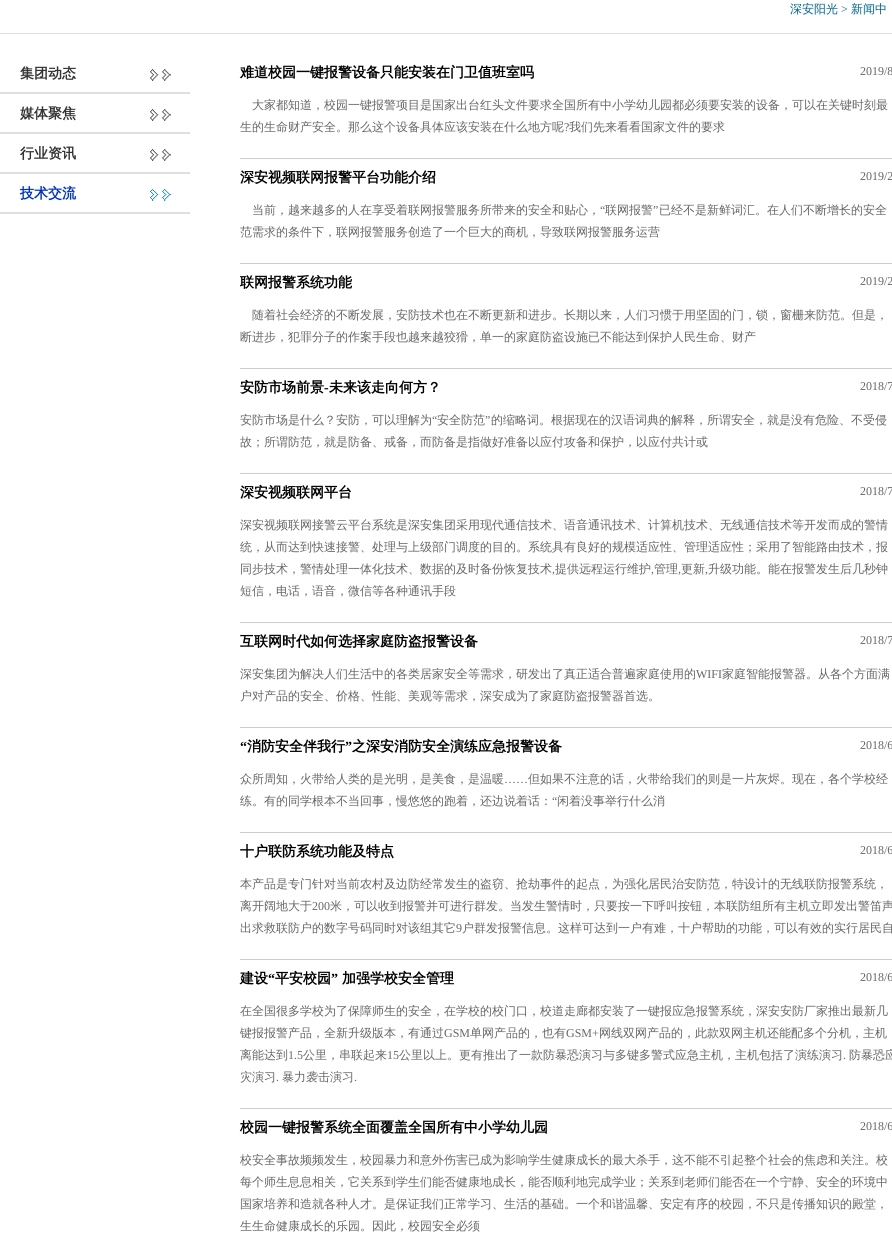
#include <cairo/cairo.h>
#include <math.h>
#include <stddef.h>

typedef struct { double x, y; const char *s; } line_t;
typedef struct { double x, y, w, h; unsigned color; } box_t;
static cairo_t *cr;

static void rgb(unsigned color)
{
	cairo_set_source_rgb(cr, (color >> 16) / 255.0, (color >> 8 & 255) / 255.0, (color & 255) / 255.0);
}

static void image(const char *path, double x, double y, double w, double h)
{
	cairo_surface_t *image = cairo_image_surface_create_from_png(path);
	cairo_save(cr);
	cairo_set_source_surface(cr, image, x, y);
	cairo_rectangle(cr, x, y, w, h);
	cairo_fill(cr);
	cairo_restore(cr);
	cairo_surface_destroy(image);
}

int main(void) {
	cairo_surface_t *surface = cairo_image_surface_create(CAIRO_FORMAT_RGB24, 892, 1243);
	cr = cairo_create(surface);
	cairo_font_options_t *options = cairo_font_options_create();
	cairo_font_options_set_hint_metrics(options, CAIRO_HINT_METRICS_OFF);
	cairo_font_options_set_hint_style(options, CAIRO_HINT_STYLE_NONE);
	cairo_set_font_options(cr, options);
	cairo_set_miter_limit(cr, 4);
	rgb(0xffffff);
	cairo_paint(cr);
	rgb(0xdfdfdf);
	cairo_rectangle(cr, 0, 33, 892, 1);
	cairo_fill(cr);
	image("img/1.png", 150, 69, 21, 12);
	cairo_rectangle(cr, 0, 92, 190, 2);
	cairo_fill(cr);
	image("img/1.png", 150, 109, 21, 12);
	cairo_rectangle(cr, 0, 132, 190, 2);
	cairo_fill(cr);
	image("img/1.png", 150, 149, 21, 12);
	cairo_rectangle(cr, 0, 172, 190, 2);
	cairo_fill(cr);
	image("img/2.png", 150, 189, 21, 12);
	{
		static const box_t items[] = {
			{0, 212, 190, 2, 0xdfdfdf},
			{240, 158, 652, 1, 0xcccccc},
			{240, 263, 652, 1, 0xcccccc},
			{240, 368, 652, 1, 0xcccccc},
			{240, 473, 652, 1, 0xcccccc},
			{240, 622, 652, 1, 0xcccccc},
			{240, 727, 652, 1, 0xcccccc},
			{240, 832, 652, 1, 0xcccccc},
			{240, 959, 652, 1, 0xcccccc},
			{240, 1108, 652, 1, 0xcccccc},
		};
		for (size_t i = 0; i < sizeof items / sizeof *items; i++) {
			rgb(items[i].color);
			cairo_rectangle(cr, items[i].x, items[i].y, items[i].w, items[i].h);
			cairo_fill(cr);
		}
	}
	cairo_select_font_face(cr, "WenQuanYi Zen Hei Medium", CAIRO_FONT_SLANT_NORMAL, CAIRO_FONT_WEIGHT_NORMAL);
	cairo_set_font_size(cr, 12);
	rgb(0x006699);
	cairo_move_to(cr, 790, 13);
	cairo_show_text(cr, "深安阳光");
	cairo_select_font_face(cr, "Liberation Serif", CAIRO_FONT_SLANT_NORMAL, CAIRO_FONT_WEIGHT_NORMAL);
	cairo_move_to(cr, 841, 13);
	cairo_show_text(cr, ">");
	cairo_select_font_face(cr, "WenQuanYi Zen Hei Medium", CAIRO_FONT_SLANT_NORMAL, CAIRO_FONT_WEIGHT_NORMAL);
	cairo_move_to(cr, 851, 13);
	cairo_show_text(cr, "新闻中");
	cairo_select_font_face(cr, "WenQuanYi Zen Hei", CAIRO_FONT_SLANT_NORMAL, CAIRO_FONT_WEIGHT_BOLD);
	cairo_set_font_size(cr, 14);
	rgb(0x333333);
	{
		static const line_t items[] = {
			{20, 78, "集团动态"},
			{20, 118, "媒体聚焦"},
			{20, 158, "行业资讯"},
		};
		for (size_t i = 0; i < sizeof items / sizeof *items; i++) {
			cairo_move_to(cr, items[i].x, items[i].y);
			cairo_show_text(cr, items[i].s);
		}
	}
	rgb(0x0033cc);
	cairo_move_to(cr, 20, 198);
	cairo_show_text(cr, "技术交流");
	rgb(0x000000);
	cairo_move_to(cr, 240, 77);
	cairo_show_text(cr, "难道校园一键报警设备只能安装在门卫值班室吗");
	cairo_select_font_face(cr, "Liberation Serif", CAIRO_FONT_SLANT_NORMAL, CAIRO_FONT_WEIGHT_NORMAL);
	cairo_set_font_size(cr, 12);
	rgb(0x666666);
	cairo_move_to(cr, 860, 75);
	cairo_show_text(cr, "2019/8");
	cairo_select_font_face(cr, "WenQuanYi Zen Hei Medium", CAIRO_FONT_SLANT_NORMAL, CAIRO_FONT_WEIGHT_NORMAL);
	cairo_move_to(cr, 252, 109);
	cairo_show_text(cr, "大家都知道，校园一键报警项目是国家出台红头文件要求全国所有中小学幼儿园都必须要安装的设备，可以在关键时刻最");
	cairo_move_to(cr, 240, 131);
	cairo_show_text(cr, "生的生命财产安全。那么这个设备具体应该安装在什么地方呢");
	cairo_select_font_face(cr, "Liberation Serif", CAIRO_FONT_SLANT_NORMAL, CAIRO_FONT_WEIGHT_NORMAL);
	cairo_move_to(cr, 564, 131);
	cairo_show_text(cr, "?");
	cairo_select_font_face(cr, "WenQuanYi Zen Hei Medium", CAIRO_FONT_SLANT_NORMAL, CAIRO_FONT_WEIGHT_NORMAL);
	cairo_move_to(cr, 569, 131);
	cairo_show_text(cr, "我们先来看看国家文件的要求");
	cairo_select_font_face(cr, "WenQuanYi Zen Hei", CAIRO_FONT_SLANT_NORMAL, CAIRO_FONT_WEIGHT_BOLD);
	cairo_set_font_size(cr, 14);
	rgb(0x000000);
	cairo_move_to(cr, 240, 182);
	cairo_show_text(cr, "深安视频联网报警平台功能介绍");
	cairo_select_font_face(cr, "Liberation Serif", CAIRO_FONT_SLANT_NORMAL, CAIRO_FONT_WEIGHT_NORMAL);
	cairo_set_font_size(cr, 12);
	rgb(0x666666);
	cairo_move_to(cr, 860, 180);
	cairo_show_text(cr, "2019/2");
	cairo_select_font_face(cr, "WenQuanYi Zen Hei Medium", CAIRO_FONT_SLANT_NORMAL, CAIRO_FONT_WEIGHT_NORMAL);
	cairo_move_to(cr, 252, 214);
	cairo_show_text(cr, "当前，越来越多的人在享受着联网报警服务所带来的安全和贴心，");
	cairo_select_font_face(cr, "Liberation Serif", CAIRO_FONT_SLANT_NORMAL, CAIRO_FONT_WEIGHT_NORMAL);
	cairo_move_to(cr, 600, 214);
	cairo_show_text(cr, "“");
	cairo_select_font_face(cr, "WenQuanYi Zen Hei Medium", CAIRO_FONT_SLANT_NORMAL, CAIRO_FONT_WEIGHT_NORMAL);
	cairo_move_to(cr, 605, 214);
	cairo_show_text(cr, "联网报警");
	cairo_select_font_face(cr, "Liberation Serif", CAIRO_FONT_SLANT_NORMAL, CAIRO_FONT_WEIGHT_NORMAL);
	cairo_move_to(cr, 653, 214);
	cairo_show_text(cr, "”");
	cairo_select_font_face(cr, "WenQuanYi Zen Hei Medium", CAIRO_FONT_SLANT_NORMAL, CAIRO_FONT_WEIGHT_NORMAL);
	cairo_move_to(cr, 659, 214);
	cairo_show_text(cr, "已经不是新鲜词汇。在人们不断增长的安全");
	cairo_move_to(cr, 240, 236);
	cairo_show_text(cr, "范需求的条件下，联网报警服务创造了一个巨大的商机，导致联网报警服务运营");
	cairo_select_font_face(cr, "WenQuanYi Zen Hei", CAIRO_FONT_SLANT_NORMAL, CAIRO_FONT_WEIGHT_BOLD);
	cairo_set_font_size(cr, 14);
	rgb(0x000000);
	cairo_move_to(cr, 240, 287);
	cairo_show_text(cr, "联网报警系统功能");
	cairo_select_font_face(cr, "Liberation Serif", CAIRO_FONT_SLANT_NORMAL, CAIRO_FONT_WEIGHT_NORMAL);
	cairo_set_font_size(cr, 12);
	rgb(0x666666);
	cairo_move_to(cr, 860, 285);
	cairo_show_text(cr, "2019/2");
	cairo_select_font_face(cr, "WenQuanYi Zen Hei Medium", CAIRO_FONT_SLANT_NORMAL, CAIRO_FONT_WEIGHT_NORMAL);
	cairo_move_to(cr, 252, 319);
	cairo_show_text(cr, "随着社会经济的不断发展，安防技术也在不断更新和进步。长期以来，人们习惯于用坚固的门，锁，窗栅来防范。但是，");
	cairo_move_to(cr, 240, 341);
	cairo_show_text(cr, "断进步，犯罪分子的作案手段也越来越狡猾，单一的家庭防盗设施已不能达到保护人民生命、财产");
	cairo_select_font_face(cr, "WenQuanYi Zen Hei", CAIRO_FONT_SLANT_NORMAL, CAIRO_FONT_WEIGHT_BOLD);
	cairo_set_font_size(cr, 14);
	rgb(0x000000);
	cairo_move_to(cr, 240, 392);
	cairo_show_text(cr, "安防市场前景");
	cairo_select_font_face(cr, "Liberation Serif", CAIRO_FONT_SLANT_NORMAL, CAIRO_FONT_WEIGHT_BOLD);
	cairo_move_to(cr, 324, 392);
	cairo_show_text(cr, "-");
	cairo_select_font_face(cr, "WenQuanYi Zen Hei", CAIRO_FONT_SLANT_NORMAL, CAIRO_FONT_WEIGHT_BOLD);
	cairo_move_to(cr, 329, 392);
	cairo_show_text(cr, "未来该走向何方？");
	cairo_select_font_face(cr, "Liberation Serif", CAIRO_FONT_SLANT_NORMAL, CAIRO_FONT_WEIGHT_NORMAL);
	cairo_set_font_size(cr, 12);
	rgb(0x666666);
	cairo_move_to(cr, 860, 390);
	cairo_show_text(cr, "2018/7");
	cairo_select_font_face(cr, "WenQuanYi Zen Hei Medium", CAIRO_FONT_SLANT_NORMAL, CAIRO_FONT_WEIGHT_NORMAL);
	cairo_move_to(cr, 240, 424);
	cairo_show_text(cr, "安防市场是什么？安防，可以理解为");
	cairo_select_font_face(cr, "Liberation Serif", CAIRO_FONT_SLANT_NORMAL, CAIRO_FONT_WEIGHT_NORMAL);
	cairo_move_to(cr, 432, 424);
	cairo_show_text(cr, "“");
	cairo_select_font_face(cr, "WenQuanYi Zen Hei Medium", CAIRO_FONT_SLANT_NORMAL, CAIRO_FONT_WEIGHT_NORMAL);
	cairo_move_to(cr, 437, 424);
	cairo_show_text(cr, "安全防范");
	cairo_select_font_face(cr, "Liberation Serif", CAIRO_FONT_SLANT_NORMAL, CAIRO_FONT_WEIGHT_NORMAL);
	cairo_move_to(cr, 485, 424);
	cairo_show_text(cr, "”");
	cairo_select_font_face(cr, "WenQuanYi Zen Hei Medium", CAIRO_FONT_SLANT_NORMAL, CAIRO_FONT_WEIGHT_NORMAL);
	cairo_move_to(cr, 491, 424);
	cairo_show_text(cr, "的缩略词。根据现在的汉语词典的解释，所谓安全，就是没有危险、不受侵");
	cairo_move_to(cr, 240, 446);
	cairo_show_text(cr, "故；所谓防范，就是防备、戒备，而防备是指做好准备以应付攻备和保护，以应付共计或");
	cairo_select_font_face(cr, "WenQuanYi Zen Hei", CAIRO_FONT_SLANT_NORMAL, CAIRO_FONT_WEIGHT_BOLD);
	cairo_set_font_size(cr, 14);
	rgb(0x000000);
	cairo_move_to(cr, 240, 497);
	cairo_show_text(cr, "深安视频联网平台");
	cairo_select_font_face(cr, "Liberation Serif", CAIRO_FONT_SLANT_NORMAL, CAIRO_FONT_WEIGHT_NORMAL);
	cairo_set_font_size(cr, 12);
	rgb(0x666666);
	cairo_move_to(cr, 860, 495);
	cairo_show_text(cr, "2018/7");
	cairo_select_font_face(cr, "WenQuanYi Zen Hei Medium", CAIRO_FONT_SLANT_NORMAL, CAIRO_FONT_WEIGHT_NORMAL);
	{
		static const line_t items[] = {
			{240, 529, "深安视频联网接警云平台系统是深安集团采用现代通信技术、语音通讯技术、计算机技术、无线通信技术等开发而成的警情"},
			{240, 551, "统，从而达到快速接警、处理与上级部门调度的目的。系统具有良好的规模适应性、管理适应性；采用了智能路由技术，报"},
			{240, 573, "同步技术，警情处理一体化技术、数据的及时备份恢复技术"},
		};
		for (size_t i = 0; i < sizeof items / sizeof *items; i++) {
			cairo_move_to(cr, items[i].x, items[i].y);
			cairo_show_text(cr, items[i].s);
		}
	}
	cairo_select_font_face(cr, "Liberation Serif", CAIRO_FONT_SLANT_NORMAL, CAIRO_FONT_WEIGHT_NORMAL);
	cairo_move_to(cr, 552, 573);
	cairo_show_text(cr, ",");
	cairo_select_font_face(cr, "WenQuanYi Zen Hei Medium", CAIRO_FONT_SLANT_NORMAL, CAIRO_FONT_WEIGHT_NORMAL);
	cairo_move_to(cr, 555, 573);
	cairo_show_text(cr, "提供远程运行维护");
	cairo_select_font_face(cr, "Liberation Serif", CAIRO_FONT_SLANT_NORMAL, CAIRO_FONT_WEIGHT_NORMAL);
	cairo_move_to(cr, 651, 573);
	cairo_show_text(cr, ",");
	cairo_select_font_face(cr, "WenQuanYi Zen Hei Medium", CAIRO_FONT_SLANT_NORMAL, CAIRO_FONT_WEIGHT_NORMAL);
	cairo_move_to(cr, 654, 573);
	cairo_show_text(cr, "管理");
	cairo_select_font_face(cr, "Liberation Serif", CAIRO_FONT_SLANT_NORMAL, CAIRO_FONT_WEIGHT_NORMAL);
	cairo_move_to(cr, 678, 573);
	cairo_show_text(cr, ",");
	cairo_select_font_face(cr, "WenQuanYi Zen Hei Medium", CAIRO_FONT_SLANT_NORMAL, CAIRO_FONT_WEIGHT_NORMAL);
	cairo_move_to(cr, 681, 573);
	cairo_show_text(cr, "更新");
	cairo_select_font_face(cr, "Liberation Serif", CAIRO_FONT_SLANT_NORMAL, CAIRO_FONT_WEIGHT_NORMAL);
	cairo_move_to(cr, 705, 573);
	cairo_show_text(cr, ",");
	cairo_select_font_face(cr, "WenQuanYi Zen Hei Medium", CAIRO_FONT_SLANT_NORMAL, CAIRO_FONT_WEIGHT_NORMAL);
	cairo_move_to(cr, 708, 573);
	cairo_show_text(cr, "升级功能。能在报警发生后几秒钟");
	cairo_move_to(cr, 240, 595);
	cairo_show_text(cr, "短信，电话，语音，微信等各种通讯手段");
	cairo_select_font_face(cr, "WenQuanYi Zen Hei", CAIRO_FONT_SLANT_NORMAL, CAIRO_FONT_WEIGHT_BOLD);
	cairo_set_font_size(cr, 14);
	rgb(0x000000);
	cairo_move_to(cr, 240, 646);
	cairo_show_text(cr, "互联网时代如何选择家庭防盗报警设备");
	cairo_select_font_face(cr, "Liberation Serif", CAIRO_FONT_SLANT_NORMAL, CAIRO_FONT_WEIGHT_NORMAL);
	cairo_set_font_size(cr, 12);
	rgb(0x666666);
	cairo_move_to(cr, 860, 644);
	cairo_show_text(cr, "2018/7");
	cairo_select_font_face(cr, "WenQuanYi Zen Hei Medium", CAIRO_FONT_SLANT_NORMAL, CAIRO_FONT_WEIGHT_NORMAL);
	cairo_move_to(cr, 240, 678);
	cairo_show_text(cr, "深安集团为解决人们生活中的各类居家安全等需求，研发出了真正适合普遍家庭使用的");
	cairo_select_font_face(cr, "Liberation Serif", CAIRO_FONT_SLANT_NORMAL, CAIRO_FONT_WEIGHT_NORMAL);
	cairo_move_to(cr, 696, 678);
	cairo_show_text(cr, "WIFI");
	cairo_select_font_face(cr, "WenQuanYi Zen Hei Medium", CAIRO_FONT_SLANT_NORMAL, CAIRO_FONT_WEIGHT_NORMAL);
	cairo_move_to(cr, 722, 678);
	cairo_show_text(cr, "家庭智能报警器。从各个方面满");
	cairo_move_to(cr, 240, 700);
	cairo_show_text(cr, "户对产品的安全、价格、性能、美观等需求，深安成为了家庭防盗报警器首选。");
	cairo_select_font_face(cr, "Liberation Serif", CAIRO_FONT_SLANT_NORMAL, CAIRO_FONT_WEIGHT_BOLD);
	cairo_set_font_size(cr, 14);
	rgb(0x000000);
	cairo_move_to(cr, 240, 751);
	cairo_show_text(cr, "“");
	cairo_select_font_face(cr, "WenQuanYi Zen Hei", CAIRO_FONT_SLANT_NORMAL, CAIRO_FONT_WEIGHT_BOLD);
	cairo_move_to(cr, 247, 751);
	cairo_show_text(cr, "消防安全伴我行");
	cairo_select_font_face(cr, "Liberation Serif", CAIRO_FONT_SLANT_NORMAL, CAIRO_FONT_WEIGHT_BOLD);
	cairo_move_to(cr, 345, 751);
	cairo_show_text(cr, "”");
	cairo_select_font_face(cr, "WenQuanYi Zen Hei", CAIRO_FONT_SLANT_NORMAL, CAIRO_FONT_WEIGHT_BOLD);
	cairo_move_to(cr, 352, 751);
	cairo_show_text(cr, "之深安消防安全演练应急报警设备");
	cairo_select_font_face(cr, "Liberation Serif", CAIRO_FONT_SLANT_NORMAL, CAIRO_FONT_WEIGHT_NORMAL);
	cairo_set_font_size(cr, 12);
	rgb(0x666666);
	cairo_move_to(cr, 860, 749);
	cairo_show_text(cr, "2018/6");
	cairo_select_font_face(cr, "WenQuanYi Zen Hei Medium", CAIRO_FONT_SLANT_NORMAL, CAIRO_FONT_WEIGHT_NORMAL);
	cairo_move_to(cr, 240, 783);
	cairo_show_text(cr, "众所周知，火带给人类的是光明，是美食，是温暖");
	cairo_select_font_face(cr, "Liberation Serif", CAIRO_FONT_SLANT_NORMAL, CAIRO_FONT_WEIGHT_NORMAL);
	cairo_move_to(cr, 504, 783);
	cairo_show_text(cr, "……");
	cairo_select_font_face(cr, "WenQuanYi Zen Hei Medium", CAIRO_FONT_SLANT_NORMAL, CAIRO_FONT_WEIGHT_NORMAL);
	cairo_move_to(cr, 528, 783);
	cairo_show_text(cr, "但如果不注意的话，火带给我们的则是一片灰烬。现在，各个学校经");
	cairo_move_to(cr, 240, 805);
	cairo_show_text(cr, "练。有的同学根本不当回事，慢悠悠的跑着，还边说着话：");
	cairo_select_font_face(cr, "Liberation Serif", CAIRO_FONT_SLANT_NORMAL, CAIRO_FONT_WEIGHT_NORMAL);
	cairo_move_to(cr, 552, 805);
	cairo_show_text(cr, "“");
	cairo_select_font_face(cr, "WenQuanYi Zen Hei Medium", CAIRO_FONT_SLANT_NORMAL, CAIRO_FONT_WEIGHT_NORMAL);
	cairo_move_to(cr, 557, 805);
	cairo_show_text(cr, "闲着没事举行什么消");
	cairo_select_font_face(cr, "WenQuanYi Zen Hei", CAIRO_FONT_SLANT_NORMAL, CAIRO_FONT_WEIGHT_BOLD);
	cairo_set_font_size(cr, 14);
	rgb(0x000000);
	cairo_move_to(cr, 240, 856);
	cairo_show_text(cr, "十户联防系统功能及特点");
	cairo_select_font_face(cr, "Liberation Serif", CAIRO_FONT_SLANT_NORMAL, CAIRO_FONT_WEIGHT_NORMAL);
	cairo_set_font_size(cr, 12);
	rgb(0x666666);
	cairo_move_to(cr, 860, 854);
	cairo_show_text(cr, "2018/6");
	cairo_select_font_face(cr, "WenQuanYi Zen Hei Medium", CAIRO_FONT_SLANT_NORMAL, CAIRO_FONT_WEIGHT_NORMAL);
	cairo_move_to(cr, 240, 888);
	cairo_show_text(cr, "本产品是专门针对当前农村及边防经常发生的盗窃、抢劫事件的起点，为强化居民治安防范，特设计的无线联防报警系统，");
	cairo_move_to(cr, 240, 910);
	cairo_show_text(cr, "离开阔地大于");
	cairo_select_font_face(cr, "Liberation Serif", CAIRO_FONT_SLANT_NORMAL, CAIRO_FONT_WEIGHT_NORMAL);
	cairo_move_to(cr, 312, 910);
	cairo_show_text(cr, "200");
	cairo_select_font_face(cr, "WenQuanYi Zen Hei Medium", CAIRO_FONT_SLANT_NORMAL, CAIRO_FONT_WEIGHT_NORMAL);
	cairo_move_to(cr, 330, 910);
	cairo_show_text(cr, "米，可以收到报警并可进行群发。当发生警情时，只要按一下呼叫按钮，本联防组所有主机立即发出警笛声");
	cairo_move_to(cr, 240, 932);
	cairo_show_text(cr, "出求救联防户的数字号码同时对该组其它");
	cairo_select_font_face(cr, "Liberation Serif", CAIRO_FONT_SLANT_NORMAL, CAIRO_FONT_WEIGHT_NORMAL);
	cairo_move_to(cr, 456, 932);
	cairo_show_text(cr, "9");
	cairo_select_font_face(cr, "WenQuanYi Zen Hei Medium", CAIRO_FONT_SLANT_NORMAL, CAIRO_FONT_WEIGHT_NORMAL);
	cairo_move_to(cr, 462, 932);
	cairo_show_text(cr, "户群发报警信息。这样可达到一户有难，十户帮助的功能，可以有效的实行居民自");
	cairo_select_font_face(cr, "WenQuanYi Zen Hei", CAIRO_FONT_SLANT_NORMAL, CAIRO_FONT_WEIGHT_BOLD);
	cairo_set_font_size(cr, 14);
	rgb(0x000000);
	cairo_move_to(cr, 240, 983);
	cairo_show_text(cr, "建设");
	cairo_select_font_face(cr, "Liberation Serif", CAIRO_FONT_SLANT_NORMAL, CAIRO_FONT_WEIGHT_BOLD);
	cairo_move_to(cr, 268, 983);
	cairo_show_text(cr, "“");
	cairo_select_font_face(cr, "WenQuanYi Zen Hei", CAIRO_FONT_SLANT_NORMAL, CAIRO_FONT_WEIGHT_BOLD);
	cairo_move_to(cr, 275, 983);
	cairo_show_text(cr, "平安校园");
	cairo_select_font_face(cr, "Liberation Serif", CAIRO_FONT_SLANT_NORMAL, CAIRO_FONT_WEIGHT_BOLD);
	cairo_move_to(cr, 331, 983);
	cairo_show_text(cr, "”");
	cairo_select_font_face(cr, "WenQuanYi Zen Hei", CAIRO_FONT_SLANT_NORMAL, CAIRO_FONT_WEIGHT_BOLD);
	cairo_move_to(cr, 342, 983);
	cairo_show_text(cr, "加强学校安全管理");
	cairo_select_font_face(cr, "Liberation Serif", CAIRO_FONT_SLANT_NORMAL, CAIRO_FONT_WEIGHT_NORMAL);
	cairo_set_font_size(cr, 12);
	rgb(0x666666);
	cairo_move_to(cr, 860, 981);
	cairo_show_text(cr, "2018/6");
	cairo_select_font_face(cr, "WenQuanYi Zen Hei Medium", CAIRO_FONT_SLANT_NORMAL, CAIRO_FONT_WEIGHT_NORMAL);
	cairo_move_to(cr, 240, 1015);
	cairo_show_text(cr, "在全国很多学校为了保障师生的安全，在学校的校门口，校道走廊都安装了一键报应急报警系统，深安安防厂家推出最新几");
	cairo_move_to(cr, 240, 1037);
	cairo_show_text(cr, "键报报警产品，全新升级版本，有通过");
	cairo_select_font_face(cr, "Liberation Serif", CAIRO_FONT_SLANT_NORMAL, CAIRO_FONT_WEIGHT_NORMAL);
	cairo_move_to(cr, 444, 1037);
	cairo_show_text(cr, "GSM");
	cairo_select_font_face(cr, "WenQuanYi Zen Hei Medium", CAIRO_FONT_SLANT_NORMAL, CAIRO_FONT_WEIGHT_NORMAL);
	cairo_move_to(cr, 470, 1037);
	cairo_show_text(cr, "单网产品的，也有");
	cairo_select_font_face(cr, "Liberation Serif", CAIRO_FONT_SLANT_NORMAL, CAIRO_FONT_WEIGHT_NORMAL);
	cairo_move_to(cr, 566, 1037);
	cairo_show_text(cr, "GSM+");
	cairo_select_font_face(cr, "WenQuanYi Zen Hei Medium", CAIRO_FONT_SLANT_NORMAL, CAIRO_FONT_WEIGHT_NORMAL);
	cairo_move_to(cr, 599, 1037);
	cairo_show_text(cr, "网线双网产品的，此款双网主机还能配多个分机，主机");
	cairo_move_to(cr, 240, 1059);
	cairo_show_text(cr, "离能达到");
	cairo_select_font_face(cr, "Liberation Serif", CAIRO_FONT_SLANT_NORMAL, CAIRO_FONT_WEIGHT_NORMAL);
	cairo_move_to(cr, 288, 1059);
	cairo_show_text(cr, "1.5");
	cairo_select_font_face(cr, "WenQuanYi Zen Hei Medium", CAIRO_FONT_SLANT_NORMAL, CAIRO_FONT_WEIGHT_NORMAL);
	cairo_move_to(cr, 303, 1059);
	cairo_show_text(cr, "公里，串联起来");
	cairo_select_font_face(cr, "Liberation Serif", CAIRO_FONT_SLANT_NORMAL, CAIRO_FONT_WEIGHT_NORMAL);
	cairo_move_to(cr, 387, 1059);
	cairo_show_text(cr, "15");
	cairo_select_font_face(cr, "WenQuanYi Zen Hei Medium", CAIRO_FONT_SLANT_NORMAL, CAIRO_FONT_WEIGHT_NORMAL);
	cairo_move_to(cr, 399, 1059);
	cairo_show_text(cr, "公里以上。更有推出了一款防暴恐演习与多键多警式应急主机，主机包括了演练演习");
	cairo_select_font_face(cr, "Liberation Serif", CAIRO_FONT_SLANT_NORMAL, CAIRO_FONT_WEIGHT_NORMAL);
	cairo_move_to(cr, 843, 1059);
	cairo_show_text(cr, ".");
	cairo_select_font_face(cr, "WenQuanYi Zen Hei Medium", CAIRO_FONT_SLANT_NORMAL, CAIRO_FONT_WEIGHT_NORMAL);
	cairo_move_to(cr, 849, 1059);
	cairo_show_text(cr, "防暴恐应");
	cairo_move_to(cr, 240, 1081);
	cairo_show_text(cr, "灾演习");
	cairo_select_font_face(cr, "Liberation Serif", CAIRO_FONT_SLANT_NORMAL, CAIRO_FONT_WEIGHT_NORMAL);
	cairo_move_to(cr, 276, 1081);
	cairo_show_text(cr, ".");
	cairo_select_font_face(cr, "WenQuanYi Zen Hei Medium", CAIRO_FONT_SLANT_NORMAL, CAIRO_FONT_WEIGHT_NORMAL);
	cairo_move_to(cr, 282, 1081);
	cairo_show_text(cr, "暴力袭击演习");
	cairo_select_font_face(cr, "Liberation Serif", CAIRO_FONT_SLANT_NORMAL, CAIRO_FONT_WEIGHT_NORMAL);
	cairo_move_to(cr, 354, 1081);
	cairo_show_text(cr, ".");
	cairo_select_font_face(cr, "WenQuanYi Zen Hei", CAIRO_FONT_SLANT_NORMAL, CAIRO_FONT_WEIGHT_BOLD);
	cairo_set_font_size(cr, 14);
	rgb(0x000000);
	cairo_move_to(cr, 240, 1132);
	cairo_show_text(cr, "校园一键报警系统全面覆盖全国所有中小学幼儿园");
	cairo_select_font_face(cr, "Liberation Serif", CAIRO_FONT_SLANT_NORMAL, CAIRO_FONT_WEIGHT_NORMAL);
	cairo_set_font_size(cr, 12);
	rgb(0x666666);
	cairo_move_to(cr, 860, 1130);
	cairo_show_text(cr, "2018/6");
	cairo_select_font_face(cr, "WenQuanYi Zen Hei Medium", CAIRO_FONT_SLANT_NORMAL, CAIRO_FONT_WEIGHT_NORMAL);
	{
		static const line_t items[] = {
			{240, 1164, "校安全事故频频发生，校园暴力和意外伤害已成为影响学生健康成长的最大杀手，这不能不引起整个社会的焦虑和关注。校"},
			{240, 1186, "每个师生息息相关，它关系到学生们能否健康地成长，能否顺利地完成学业；关系到老师们能否在一个宁静、安全的环境中"},
			{240, 1208, "国家培养和造就各种人才。是保证我们正常学习、生活的基础。一个和谐温馨、安定有序的校园，不只是传播知识的殿堂，"},
			{240, 1230, "生生命健康成长的乐园。因此，校园安全必须"},
		};
		for (size_t i = 0; i < sizeof items / sizeof *items; i++) {
			cairo_move_to(cr, items[i].x, items[i].y);
			cairo_show_text(cr, items[i].s);
		}
	}
	cairo_surface_write_to_png(surface, "page.png");
	cairo_font_options_destroy(options);
	cairo_destroy(cr);
	cairo_surface_destroy(surface);
	return 0;
}
